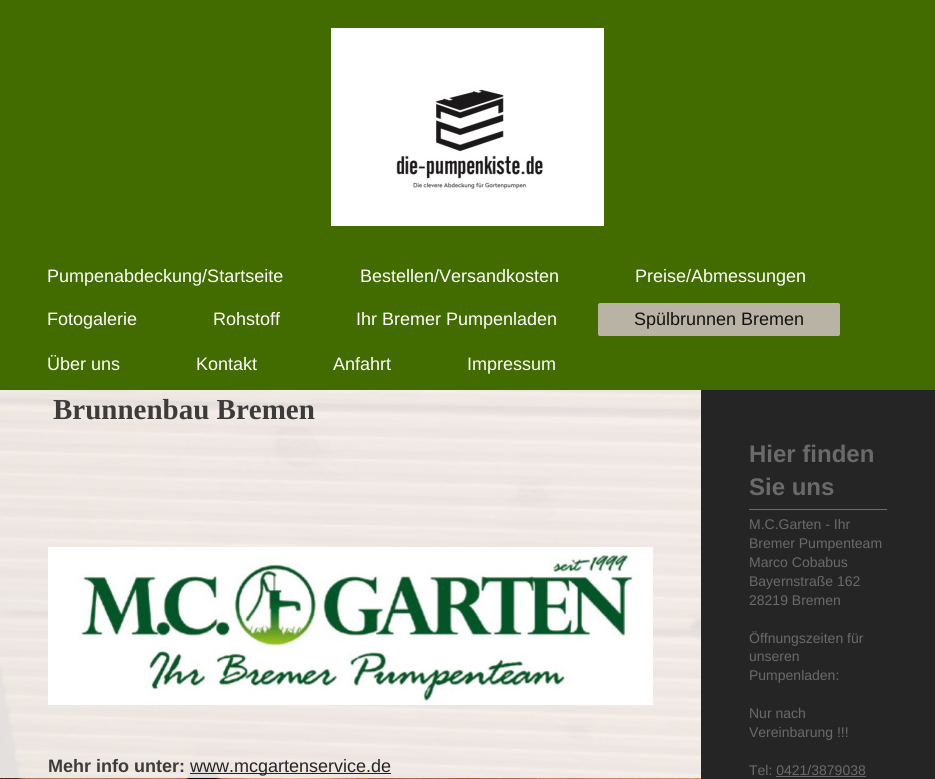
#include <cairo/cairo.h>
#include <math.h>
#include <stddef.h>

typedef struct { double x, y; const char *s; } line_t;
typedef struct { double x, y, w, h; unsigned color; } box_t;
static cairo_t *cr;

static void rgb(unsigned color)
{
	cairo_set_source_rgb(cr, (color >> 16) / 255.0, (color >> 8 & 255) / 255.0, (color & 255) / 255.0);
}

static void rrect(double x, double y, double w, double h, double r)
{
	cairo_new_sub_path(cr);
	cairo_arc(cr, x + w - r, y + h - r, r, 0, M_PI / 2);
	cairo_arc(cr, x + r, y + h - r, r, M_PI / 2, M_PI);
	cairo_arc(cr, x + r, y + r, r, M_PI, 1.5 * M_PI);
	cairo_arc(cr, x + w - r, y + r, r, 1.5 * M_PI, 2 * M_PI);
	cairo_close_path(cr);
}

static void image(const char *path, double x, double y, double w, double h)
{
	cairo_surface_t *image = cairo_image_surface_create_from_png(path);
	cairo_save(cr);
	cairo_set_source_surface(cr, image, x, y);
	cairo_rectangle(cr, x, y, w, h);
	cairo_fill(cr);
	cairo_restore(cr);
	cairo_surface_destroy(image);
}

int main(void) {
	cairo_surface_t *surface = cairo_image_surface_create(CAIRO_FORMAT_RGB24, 935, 779);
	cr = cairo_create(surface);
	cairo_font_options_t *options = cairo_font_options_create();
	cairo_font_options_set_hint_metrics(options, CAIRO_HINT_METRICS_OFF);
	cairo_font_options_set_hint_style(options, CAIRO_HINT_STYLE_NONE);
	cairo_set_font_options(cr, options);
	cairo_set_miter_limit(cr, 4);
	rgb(0xffffff);
	cairo_paint(cr);
	image("img/1.png", 0, 390, 701, 389);
	rgb(0x426c00);
	cairo_rectangle(cr, 0, 0, 935, 390);
	cairo_fill(cr);
	image("img/2.png", 331, 28, 273, 198);
	rgb(0xb9b3a5);
	rrect(598, 303, 242, 33, 2);
	cairo_fill(cr);
	cairo_rectangle(cr, 599, 335, 240, 1);
	cairo_fill(cr);
	cairo_set_source_rgba(cr, 0.957, 0.957, 0.957, 0.9);
	cairo_rectangle(cr, 0, 390, 701, 388);
	cairo_fill(cr);
	image("img/3.png", 48, 547, 605, 158);
	{
		static const box_t items[] = {
			{190, 773, 201, 1, 0x252525},
			{701, 390, 234, 389, 0x252525},
			{749, 509, 138, 1, 0x6a6a6a},
			{776, 776, 90, 1, 0x6a6a6a},
		};
		for (size_t i = 0; i < sizeof items / sizeof *items; i++) {
			rgb(items[i].color);
			cairo_rectangle(cr, items[i].x, items[i].y, items[i].w, items[i].h);
			cairo_fill(cr);
		}
	}
	cairo_select_font_face(cr, "Liberation Sans", CAIRO_FONT_SLANT_NORMAL, CAIRO_FONT_WEIGHT_NORMAL);
	cairo_set_font_size(cr, 18);
	rgb(0xffffff);
	{
		static const line_t items[] = {
			{47, 282, "Pumpenabdeckung/Startseite"},
			{360, 282, "Bestellen/Versandkosten"},
			{635, 282, "Preise/Abmessungen"},
			{47, 325, "Fotogalerie"},
			{213, 325, "Rohstoff"},
			{356, 325, "Ihr Bremer Pumpenladen"},
		};
		for (size_t i = 0; i < sizeof items / sizeof *items; i++) {
			cairo_move_to(cr, items[i].x, items[i].y);
			cairo_show_text(cr, items[i].s);
		}
	}
	rgb(0x131211);
	cairo_move_to(cr, 634, 325);
	cairo_show_text(cr, "Spülbrunnen Bremen");
	rgb(0xffffff);
	{
		static const line_t items[] = {
			{47, 370, "Über uns"},
			{196, 370, "Kontakt"},
			{333, 370, "Anfahrt"},
			{467, 370, "Impressum"},
		};
		for (size_t i = 0; i < sizeof items / sizeof *items; i++) {
			cairo_move_to(cr, items[i].x, items[i].y);
			cairo_show_text(cr, items[i].s);
		}
	}
	cairo_select_font_face(cr, "Liberation Serif", CAIRO_FONT_SLANT_NORMAL, CAIRO_FONT_WEIGHT_BOLD);
	cairo_set_font_size(cr, 29);
	rgb(0x3c3c3c);
	cairo_move_to(cr, 53, 419);
	cairo_show_text(cr, "Brunnenbau Bremen");
	cairo_select_font_face(cr, "Liberation Sans", CAIRO_FONT_SLANT_NORMAL, CAIRO_FONT_WEIGHT_BOLD);
	cairo_set_font_size(cr, 18);
	cairo_move_to(cr, 48, 772);
	cairo_show_text(cr, "Mehr info unter:");
	cairo_select_font_face(cr, "Liberation Sans", CAIRO_FONT_SLANT_NORMAL, CAIRO_FONT_WEIGHT_NORMAL);
	rgb(0x252525);
	cairo_move_to(cr, 190, 772);
	cairo_show_text(cr, "www.mcgartenservice.de");
	cairo_select_font_face(cr, "Liberation Sans", CAIRO_FONT_SLANT_NORMAL, CAIRO_FONT_WEIGHT_BOLD);
	cairo_set_font_size(cr, 24);
	rgb(0x6a6a6a);
	cairo_move_to(cr, 749, 462);
	cairo_show_text(cr, "Hier finden");
	cairo_move_to(cr, 749, 495);
	cairo_show_text(cr, "Sie uns");
	cairo_select_font_face(cr, "Liberation Sans", CAIRO_FONT_SLANT_NORMAL, CAIRO_FONT_WEIGHT_NORMAL);
	cairo_set_font_size(cr, 14);
	{
		static const line_t items[] = {
			{749, 529, "M.C.Garten - Ihr"},
			{749, 548, "Bremer Pumpenteam"},
			{749, 567, "Marco Cobabus"},
			{749, 586, "Bayernstraße 162"},
			{749, 605, "28219 Bremen"},
			{749, 643, "Öffnungszeiten für"},
			{749, 661, "unseren"},
			{749, 680, "Pumpenladen:"},
			{749, 718, "Nur nach"},
			{749, 737, "Vereinbarung !!!"},
			{749, 775, "Tel: 0421/3879038"},
		};
		for (size_t i = 0; i < sizeof items / sizeof *items; i++) {
			cairo_move_to(cr, items[i].x, items[i].y);
			cairo_show_text(cr, items[i].s);
		}
	}
	cairo_surface_write_to_png(surface, "page.png");
	cairo_font_options_destroy(options);
	cairo_destroy(cr);
	cairo_surface_destroy(surface);
	return 0;
}
